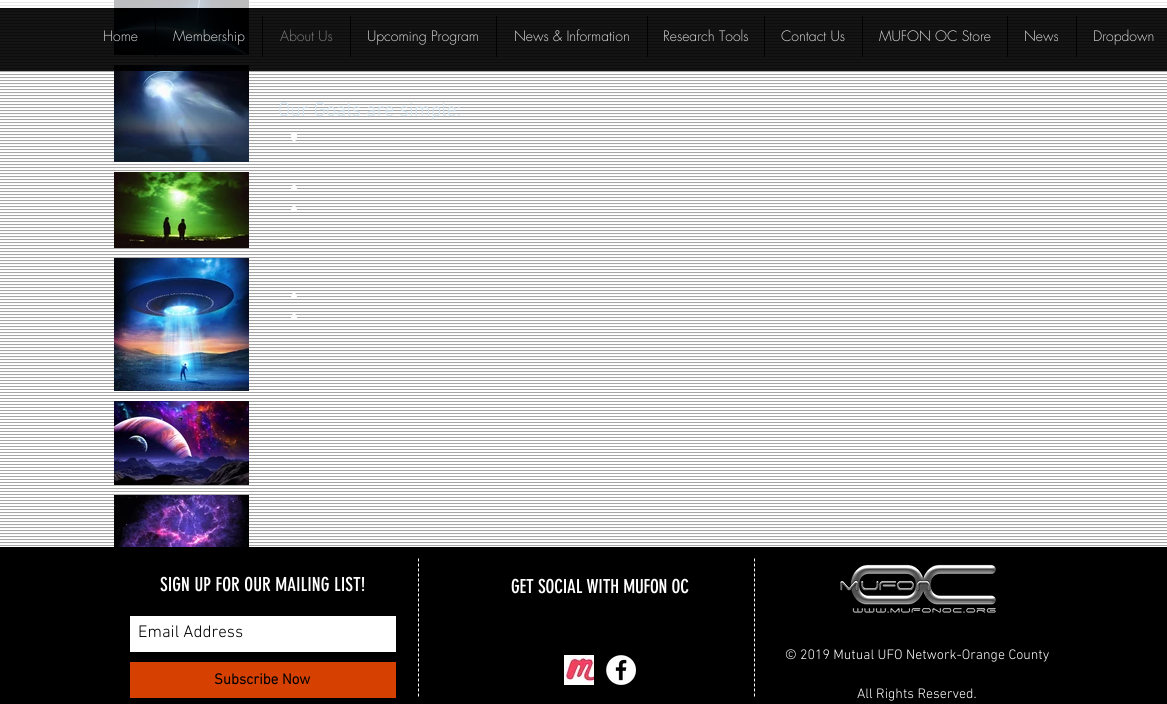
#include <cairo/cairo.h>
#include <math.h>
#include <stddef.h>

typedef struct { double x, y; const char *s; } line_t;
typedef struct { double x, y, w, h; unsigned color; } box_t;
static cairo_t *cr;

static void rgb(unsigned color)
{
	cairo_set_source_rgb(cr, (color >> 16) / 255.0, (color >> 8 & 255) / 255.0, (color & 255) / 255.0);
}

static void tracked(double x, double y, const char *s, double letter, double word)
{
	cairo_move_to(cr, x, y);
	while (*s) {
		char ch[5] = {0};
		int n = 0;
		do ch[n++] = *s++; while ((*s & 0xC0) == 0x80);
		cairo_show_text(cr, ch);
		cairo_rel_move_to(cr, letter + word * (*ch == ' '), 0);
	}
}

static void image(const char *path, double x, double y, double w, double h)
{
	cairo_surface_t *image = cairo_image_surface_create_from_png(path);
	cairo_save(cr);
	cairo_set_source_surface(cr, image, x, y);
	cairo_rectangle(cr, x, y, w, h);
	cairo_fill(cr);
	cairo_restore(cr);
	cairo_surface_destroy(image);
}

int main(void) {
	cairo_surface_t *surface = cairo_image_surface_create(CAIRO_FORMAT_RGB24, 1167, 704);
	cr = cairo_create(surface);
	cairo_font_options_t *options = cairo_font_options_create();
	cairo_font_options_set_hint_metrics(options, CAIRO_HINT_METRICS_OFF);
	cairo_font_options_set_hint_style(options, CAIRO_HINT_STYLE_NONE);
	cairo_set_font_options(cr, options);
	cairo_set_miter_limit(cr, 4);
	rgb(0xffffff);
	cairo_paint(cr);
	image("img/1.png", 0, 2, 1167, 544);
	image("img/2.png", 114, 0, 135, 55);
	cairo_set_source_rgba(cr, 1, 1, 1, 0.74);
	cairo_rectangle(cr, 0, 0, 1167, 8);
	cairo_fill(cr);
	image("img/3.png", 114, 65, 135, 97);
	cairo_set_source_rgba(cr, 0, 0, 0, 0.92);
	cairo_rectangle(cr, 0, 8, 1167, 63);
	cairo_fill(cr);
	rgb(0x000000);
	cairo_rectangle(cr, 155, 16, 1, 41);
	cairo_fill(cr);
	cairo_rectangle(cr, 262, 16, 1, 41);
	cairo_fill(cr);
	cairo_rectangle(cr, 350, 16, 1, 41);
	cairo_fill(cr);
	cairo_rectangle(cr, 496, 16, 1, 41);
	cairo_fill(cr);
	cairo_rectangle(cr, 647, 16, 1, 41);
	cairo_fill(cr);
	cairo_rectangle(cr, 764, 16, 1, 41);
	cairo_fill(cr);
	cairo_rectangle(cr, 862, 16, 1, 41);
	cairo_fill(cr);
	cairo_rectangle(cr, 1007, 16, 1, 41);
	cairo_fill(cr);
	cairo_rectangle(cr, 1076, 16, 1, 41);
	cairo_fill(cr);
	image("img/4.png", 114, 172, 135, 76);
	image("img/5.png", 114, 258, 135, 133);
	image("img/6.png", 114, 401, 135, 84);
	image("img/7.png", 114, 495, 135, 52);
	rgb(0xffffff);
	cairo_arc(cr, 294, 135, 3, 0, 2 * M_PI);
	cairo_fill(cr);
	cairo_arc(cr, 294, 138, 3, 0, 2 * M_PI);
	cairo_fill(cr);
	cairo_arc(cr, 294, 209, 3, 0, 2 * M_PI);
	cairo_fill(cr);
	cairo_arc(cr, 294, 317, 3, 0, 2 * M_PI);
	cairo_fill(cr);
	cairo_arc(cr, 294, 188, 3, 0, 2 * M_PI);
	cairo_fill(cr);
	cairo_arc(cr, 294, 296, 3, 0, 2 * M_PI);
	cairo_fill(cr);
	{
		static const box_t items[] = {
			{0, 547, 1167, 157, 0x000000},
			{130, 616, 266, 36, 0xffffff},
			{130, 662, 266, 36, 0xd64000},
		};
		for (size_t i = 0; i < sizeof items / sizeof *items; i++) {
			rgb(items[i].color);
			cairo_rectangle(cr, items[i].x, items[i].y, items[i].w, items[i].h);
			cairo_fill(cr);
		}
	}
	cairo_new_path(cr);
	cairo_move_to(cr, 418.5, 558.5);
	cairo_line_to(cr, 418.5, 696.5);
	rgb(0xffffff);
	cairo_set_line_width(cr, 1);
	cairo_set_dash(cr, (double[]){3, 2}, 2, 0);
	cairo_stroke(cr);
	cairo_new_path(cr);
	cairo_move_to(cr, 754.5, 558.5);
	cairo_line_to(cr, 754.5, 696.5);
	cairo_stroke(cr);
	image("img/8.png", 840, 564, 156, 49);
	image("img/9.png", 564, 655, 30, 30);
	image("img/10.png", 606, 655, 30, 30);
	cairo_select_font_face(cr, "futura Light", CAIRO_FONT_SLANT_NORMAL, CAIRO_FONT_WEIGHT_NORMAL);
	cairo_set_font_size(cr, 14);
	rgb(0xdbdbdb);
	cairo_move_to(cr, 103, 41);
	cairo_show_text(cr, "Home");
	cairo_move_to(cr, 173, 41);
	cairo_show_text(cr, "Membership");
	rgb(0x808080);
	cairo_move_to(cr, 280, 41);
	cairo_show_text(cr, "About Us");
	rgb(0xdbdbdb);
	{
		static const line_t items[] = {
			{367, 41, "Upcoming Program"},
			{514, 41, "News & Information"},
			{663, 41, "Research Tools"},
			{781, 41, "Contact Us"},
			{879, 41, "MUFON OC Store"},
			{1024, 41, "News"},
			{1093, 41, "Dropdown"},
		};
		for (size_t i = 0; i < sizeof items / sizeof *items; i++) {
			cairo_move_to(cr, items[i].x, items[i].y);
			cairo_show_text(cr, items[i].s);
		}
	}
	cairo_select_font_face(cr, "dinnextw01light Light", CAIRO_FONT_SLANT_NORMAL, CAIRO_FONT_WEIGHT_NORMAL);
	cairo_set_font_size(cr, 20);
	rgb(0xd3e6f2);
	cairo_move_to(cr, 278, 116);
	cairo_show_text(cr, "Our Goals are simple:");
	cairo_select_font_face(cr, "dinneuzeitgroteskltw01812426", CAIRO_FONT_SLANT_NORMAL, CAIRO_FONT_WEIGHT_NORMAL);
	cairo_set_font_size(cr, 19);
	rgb(0xffffff);
	cairo_move_to(cr, 160, 591);
	cairo_show_text(cr, "SIGN UP FOR OUR MAILING LIST!");
	cairo_select_font_face(cr, "dinnextw01light Light", CAIRO_FONT_SLANT_NORMAL, CAIRO_FONT_WEIGHT_NORMAL);
	cairo_set_font_size(cr, 17);
	rgb(0x000000);
	cairo_move_to(cr, 138, 637);
	cairo_show_text(cr, "Email Address");
	cairo_select_font_face(cr, "dinnextw01light", CAIRO_FONT_SLANT_NORMAL, CAIRO_FONT_WEIGHT_BOLD);
	cairo_set_font_size(cr, 15);
	cairo_move_to(cr, 214, 684);
	cairo_show_text(cr, "Subscribe Now");
	cairo_select_font_face(cr, "dinneuzeitgroteskltw01812426", CAIRO_FONT_SLANT_NORMAL, CAIRO_FONT_WEIGHT_NORMAL);
	cairo_set_font_size(cr, 19);
	rgb(0xffffff);
	tracked(511, 593, "GET SOCIAL WITH MUFON OC", -0.2, 0);
	cairo_select_font_face(cr, "dinnextw01light Light", CAIRO_FONT_SLANT_NORMAL, CAIRO_FONT_WEIGHT_NORMAL);
	cairo_set_font_size(cr, 14);
	cairo_move_to(cr, 785, 659);
	cairo_show_text(cr, "© 2019 Mutual UFO Network-Orange County");
	cairo_move_to(cr, 857, 698);
	cairo_show_text(cr, "All Rights Reserved.");
	cairo_surface_write_to_png(surface, "page.png");
	cairo_font_options_destroy(options);
	cairo_destroy(cr);
	cairo_surface_destroy(surface);
	return 0;
}
